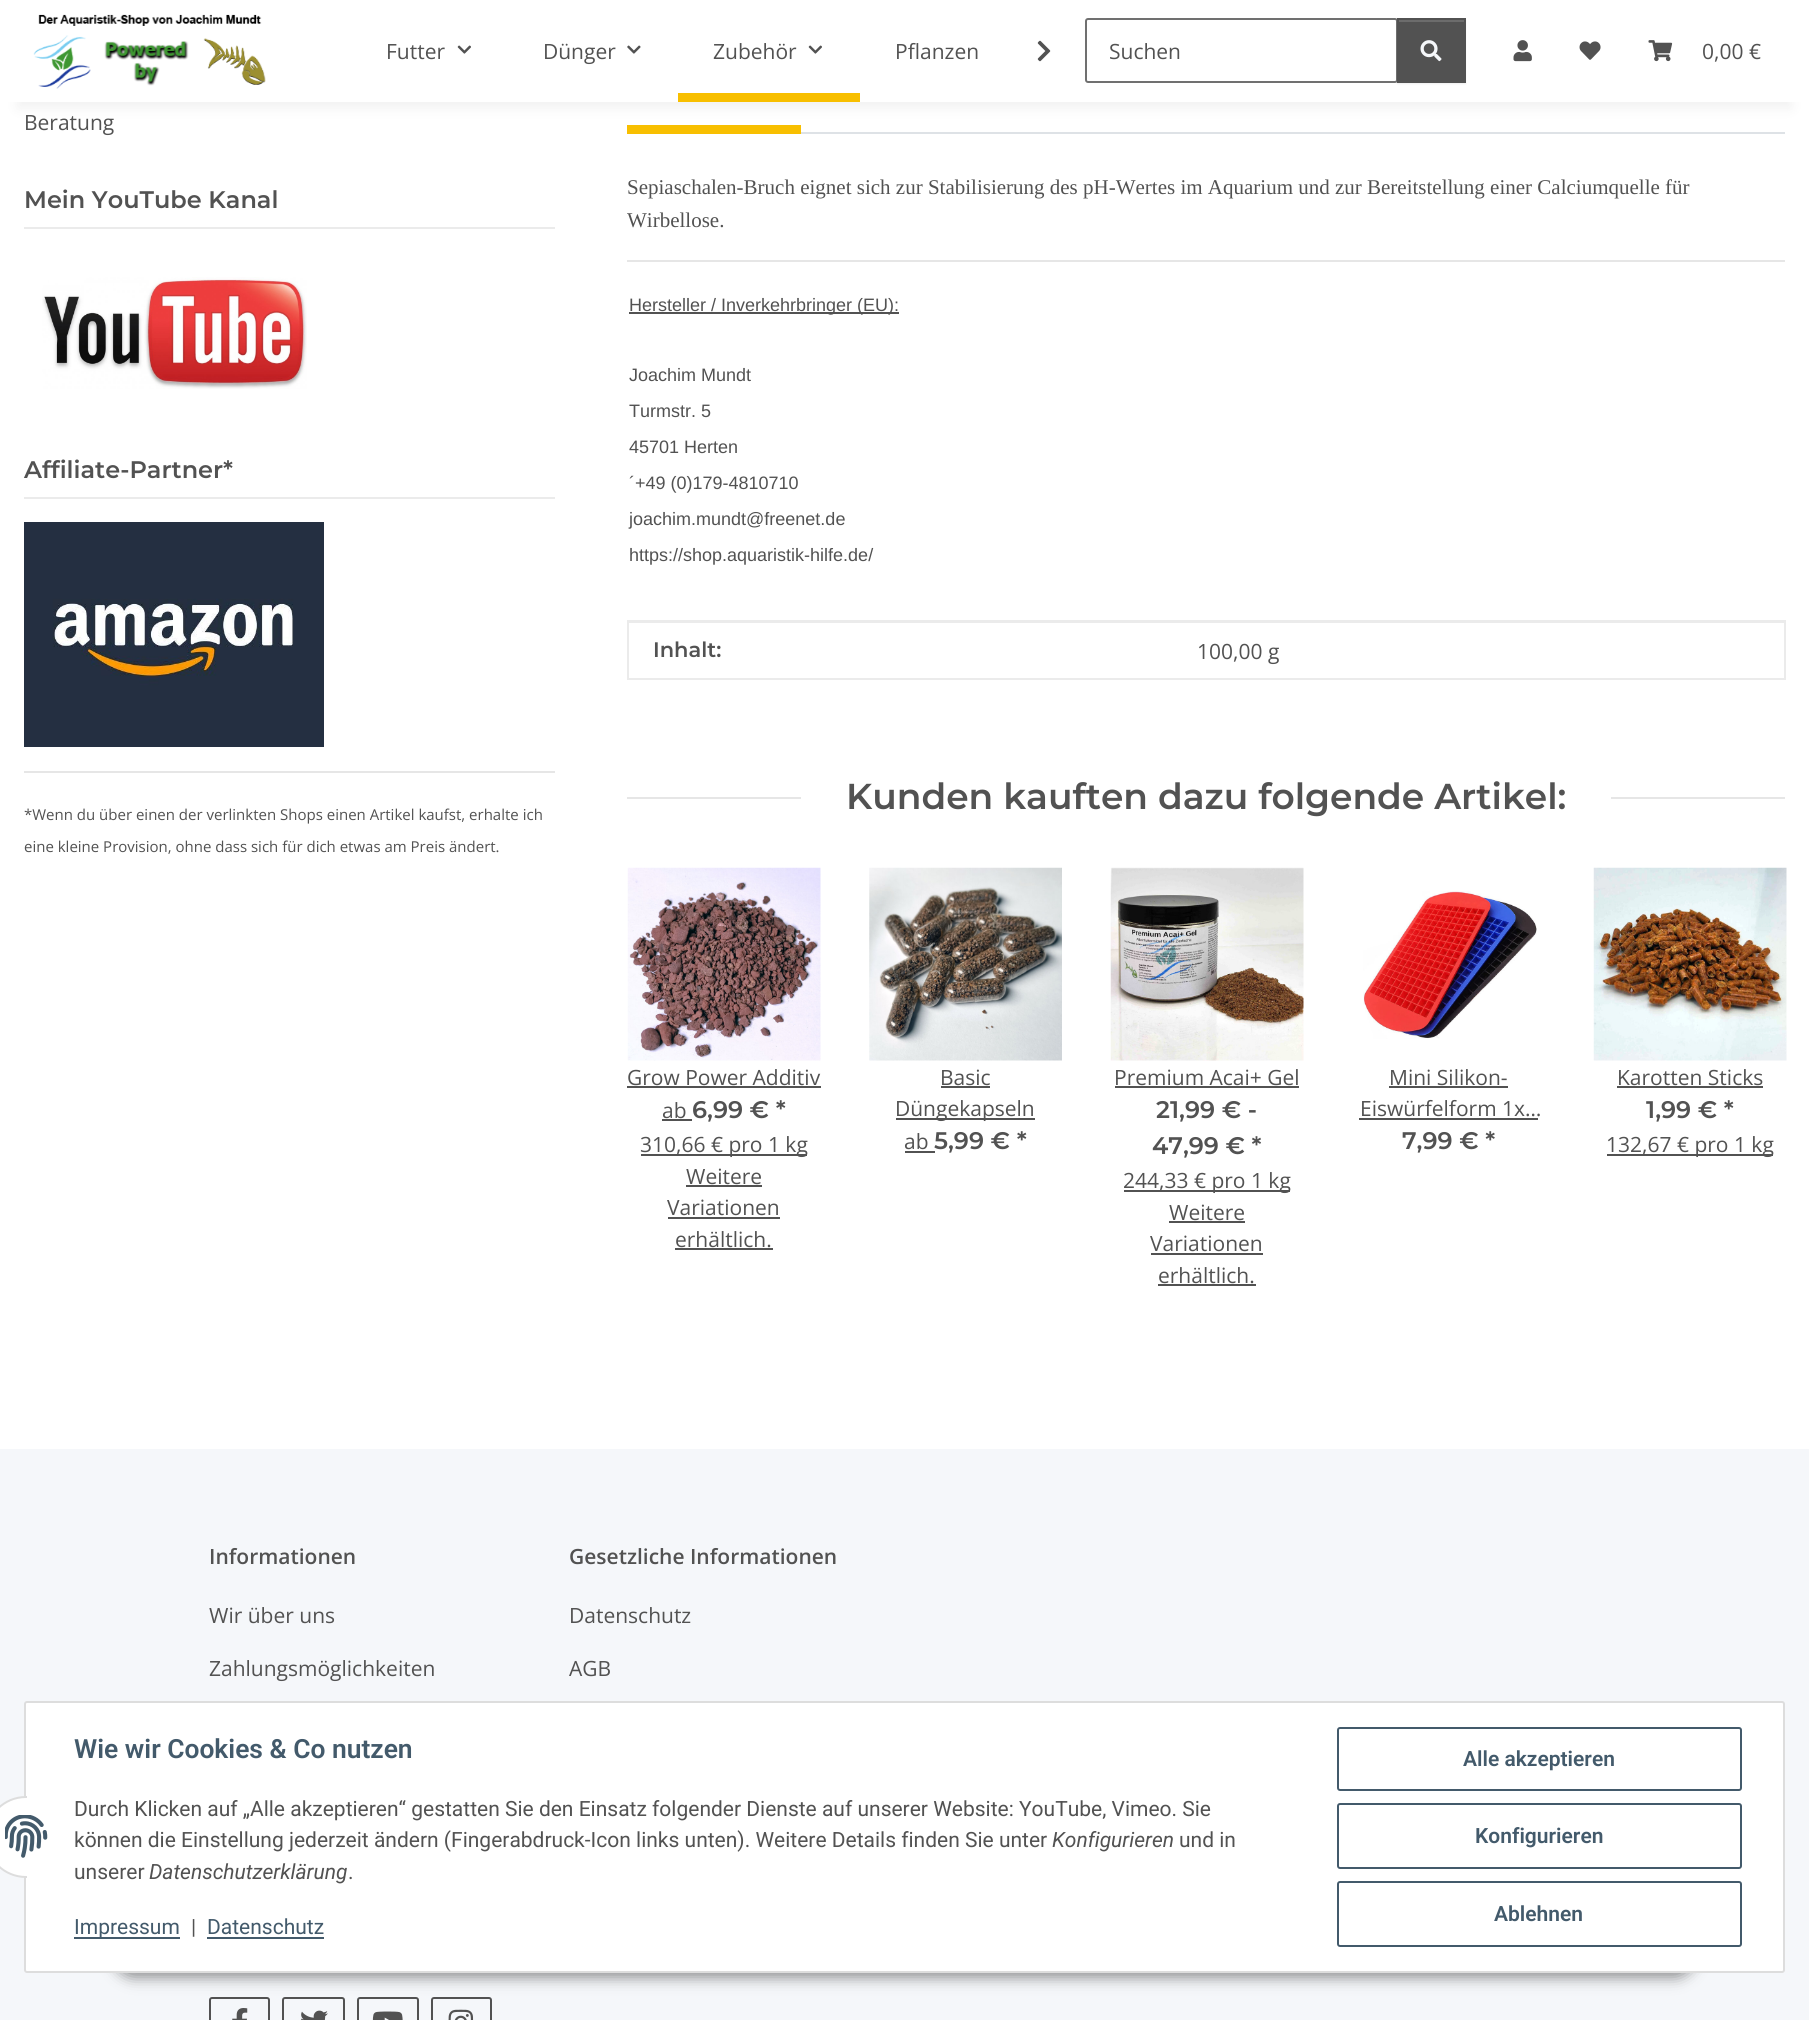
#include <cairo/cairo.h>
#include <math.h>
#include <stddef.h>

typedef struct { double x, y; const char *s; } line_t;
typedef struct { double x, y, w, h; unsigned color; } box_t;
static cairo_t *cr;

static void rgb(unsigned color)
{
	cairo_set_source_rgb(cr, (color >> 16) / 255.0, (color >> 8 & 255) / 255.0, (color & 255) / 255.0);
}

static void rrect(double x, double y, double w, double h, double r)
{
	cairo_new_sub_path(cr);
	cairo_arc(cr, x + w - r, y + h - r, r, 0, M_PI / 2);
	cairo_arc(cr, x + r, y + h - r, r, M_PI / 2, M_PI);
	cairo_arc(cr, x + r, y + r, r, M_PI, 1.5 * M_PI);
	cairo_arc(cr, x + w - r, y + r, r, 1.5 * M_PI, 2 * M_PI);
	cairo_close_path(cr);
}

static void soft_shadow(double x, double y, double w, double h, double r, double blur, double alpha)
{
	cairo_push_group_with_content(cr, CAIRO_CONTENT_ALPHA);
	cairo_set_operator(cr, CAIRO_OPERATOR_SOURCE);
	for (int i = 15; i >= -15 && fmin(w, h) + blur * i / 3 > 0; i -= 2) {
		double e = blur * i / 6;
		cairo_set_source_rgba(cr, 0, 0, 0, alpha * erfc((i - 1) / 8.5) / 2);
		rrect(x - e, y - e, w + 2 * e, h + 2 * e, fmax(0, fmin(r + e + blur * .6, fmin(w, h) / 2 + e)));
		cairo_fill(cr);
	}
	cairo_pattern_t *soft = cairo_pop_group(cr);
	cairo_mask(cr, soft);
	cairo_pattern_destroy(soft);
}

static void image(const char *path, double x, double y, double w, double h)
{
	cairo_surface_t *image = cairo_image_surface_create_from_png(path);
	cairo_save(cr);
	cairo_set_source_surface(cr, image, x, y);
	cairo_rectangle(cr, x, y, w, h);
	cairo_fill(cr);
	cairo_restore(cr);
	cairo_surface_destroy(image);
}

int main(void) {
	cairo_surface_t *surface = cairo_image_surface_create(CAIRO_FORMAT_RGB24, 1809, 2020);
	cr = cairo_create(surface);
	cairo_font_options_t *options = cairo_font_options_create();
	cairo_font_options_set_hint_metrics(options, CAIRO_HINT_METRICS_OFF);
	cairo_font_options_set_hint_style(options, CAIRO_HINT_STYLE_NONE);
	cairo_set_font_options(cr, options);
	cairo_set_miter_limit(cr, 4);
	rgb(0xf5f7fa);
	cairo_paint(cr);
	rgb(0xffffff);
	cairo_rectangle(cr, 0, 102, 1809, 1347);
	cairo_fill(cr);
	rgb(0xf8bf00);
	cairo_rectangle(cr, 627, 125, 174, 9);
	cairo_fill(cr);
	rgb(0x000000);
	soft_shadow(18, 42, 1773, 66, 0, 7, 0.06);
	rgb(0xffffff);
	cairo_rectangle(cr, 0, 0, 1809, 102);
	cairo_fill(cr);
	image("img/1.png", 33, 14, 233, 75);
	image("img/2.png", 457, 45, 14, 9);
	image("img/3.png", 627, 45, 14, 9);
	image("img/2.png", 808, 45, 14, 9);
	rgb(0xf8bf00);
	cairo_rectangle(cr, 678, 93, 182, 9);
	cairo_fill(cr);
	image("img/4.png", 1037, 40, 14, 22);
	rrect(1086, 19, 311, 63, 2);
	rgb(0x707070);
	cairo_stroke(cr);
	rgb(0x000000);
	soft_shadow(1397, 20, 69, 64, 0, 1, 0.07);
	rgb(0x525252);
	cairo_rectangle(cr, 1399, 22, 65, 59);
	cairo_fill(cr);
	rgb(0x6c6c6c);
	cairo_rectangle(cr, 1398, 20, 66, 2);
	cairo_fill(cr);
	cairo_rectangle(cr, 1398, 19, 67, 63);
	rgb(0x525252);
	cairo_stroke(cr);
	image("img/5.png", 1420, 40, 22, 22);
	image("img/6.png", 1513, 40, 19, 22);
	image("img/7.png", 1579, 41, 22, 19);
	image("img/8.png", 1648, 40, 25, 22);
	rgb(0xebebeb);
	cairo_rectangle(cr, 24, 227, 531, 2);
	cairo_fill(cr);
	image("img/9.png", 42, 277, 265, 112);
	cairo_rectangle(cr, 24, 497, 531, 2);
	cairo_fill(cr);
	image("img/10.png", 24, 522, 300, 225);
	{
		static const box_t items[] = {
			{24, 771, 531, 2, 0xe6e6e6},
			{801, 132, 984, 2, 0xdee2e6},
			{627, 260, 1158, 2, 0xe6e6e6},
			{629, 312, 270, 2, 0x525252},
			{627, 622, 1158, 1, 0xebebeb},
			{1784, 621, 2, 59, 0xebebeb},
			{627, 678, 1158, 2, 0xebebeb},
			{627, 621, 2, 59, 0xebebeb},
			{627, 620, 1158, 2, 0xebebeb},
			{1785, 620, 1, 3, 0xebebeb},
			{627, 797, 174, 2, 0xe6e6e6},
			{1611, 797, 174, 2, 0xe6e6e6},
		};
		for (size_t i = 0; i < sizeof items / sizeof *items; i++) {
			rgb(items[i].color);
			cairo_rectangle(cr, items[i].x, items[i].y, items[i].w, items[i].h);
			cairo_fill(cr);
		}
	}
	image("img/11.png", 627, 867, 194, 194);
	{
		static const box_t items[] = {
			{627, 1086, 194, 2, 0x525252},
			{662, 1119, 30, 2, 0x525252},
			{641, 1154, 166, 2, 0x525252},
			{686, 1185, 76, 2, 0x525252},
			{668, 1217, 112, 2, 0x525252},
			{675, 1248, 98, 2, 0x525252},
		};
		for (size_t i = 0; i < sizeof items / sizeof *items; i++) {
			rgb(items[i].color);
			cairo_rectangle(cr, items[i].x, items[i].y, items[i].w, items[i].h);
			cairo_fill(cr);
		}
	}
	image("img/12.png", 869, 867, 193, 194);
	{
		static const box_t items[] = {
			{941, 1086, 49, 2, 0x525252},
			{896, 1118, 139, 2, 0x525252},
			{905, 1151, 30, 2, 0x525252},
		};
		for (size_t i = 0; i < sizeof items / sizeof *items; i++) {
			rgb(items[i].color);
			cairo_rectangle(cr, items[i].x, items[i].y, items[i].w, items[i].h);
			cairo_fill(cr);
		}
	}
	image("img/13.png", 1110, 867, 194, 194);
	{
		static const box_t items[] = {
			{1115, 1086, 184, 2, 0x525252},
			{1124, 1190, 166, 2, 0x525252},
			{1169, 1221, 76, 2, 0x525252},
			{1151, 1253, 112, 2, 0x525252},
			{1158, 1284, 98, 2, 0x525252},
		};
		for (size_t i = 0; i < sizeof items / sizeof *items; i++) {
			rgb(items[i].color);
			cairo_rectangle(cr, items[i].x, items[i].y, items[i].w, items[i].h);
			cairo_fill(cr);
		}
	}
	image("img/14.png", 1363, 891, 174, 148);
	cairo_rectangle(cr, 1389, 1086, 119, 2);
	cairo_fill(cr);
	cairo_rectangle(cr, 1359, 1118, 179, 2);
	cairo_fill(cr);
	image("img/15.png", 1593, 867, 194, 194);
	cairo_rectangle(cr, 1617, 1086, 146, 2);
	cairo_fill(cr);
	cairo_rectangle(cr, 1607, 1154, 166, 2);
	cairo_fill(cr);
	rrect(210, 1998, 59, 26, 2);
	cairo_stroke(cr);
	image("img/16.png", 232, 2008, 16, 12);
	rrect(283, 1998, 61, 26, 2);
	cairo_stroke(cr);
	image("img/17.png", 301, 2010, 27, 10);
	rrect(358, 1998, 60, 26, 2);
	cairo_stroke(cr);
	image("img/18.png", 372, 2011, 31, 9);
	rrect(432, 1998, 59, 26, 2);
	cairo_stroke(cr);
	image("img/19.png", 448, 2009, 26, 11);
	rgb(0x000000);
	soft_shadow(114, 1929, 1581, 48, 24, 7.5, 0.45);
	rgb(0xffffff);
	rrect(25, 1702, 1759, 270, 2);
	cairo_fill_preserve(cr);
	rgb(0xdddddd);
	cairo_stroke(cr);
	rgb(0xffffff);
	rrect(-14, 1797, 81, 80, 40);
	cairo_fill_preserve(cr);
	rgb(0xdddddd);
	cairo_stroke(cr);
	rgb(0xffffff);
	cairo_rectangle(cr, 27, 1796, 41, 82);
	cairo_fill(cr);
	image("img/20.png", 5, 1815, 43, 43);
	rgb(0x435a6b);
	cairo_rectangle(cr, 74, 1937, 106, 2);
	cairo_fill(cr);
	cairo_rectangle(cr, 207, 1937, 117, 2);
	cairo_fill(cr);
	rrect(1338, 1728, 403, 62, 2);
	cairo_stroke(cr);
	rrect(1338, 1804, 403, 64, 2);
	cairo_stroke(cr);
	rrect(1338, 1882, 403, 64, 2);
	cairo_stroke(cr);
	cairo_select_font_face(cr, "Open Sans", CAIRO_FONT_SLANT_NORMAL, CAIRO_FONT_WEIGHT_NORMAL);
	cairo_set_font_size(cr, 21);
	rgb(0x525252);
	{
		static const line_t items[] = {
			{386, 59, "Futter"},
			{543, 59, "Dünger"},
			{713, 59, "Zubehör"},
			{895, 59, "Pflanzen"},
			{1109, 59, "Suchen"},
			{1702, 59, "0,00 €"},
			{24, 130, "Beratung"},
		};
		for (size_t i = 0; i < sizeof items / sizeof *items; i++) {
			cairo_move_to(cr, items[i].x, items[i].y);
			cairo_show_text(cr, items[i].s);
		}
	}
	cairo_select_font_face(cr, "Montserrat SemiBold", CAIRO_FONT_SLANT_NORMAL, CAIRO_FONT_WEIGHT_NORMAL);
	cairo_set_font_size(cr, 24);
	cairo_move_to(cr, 24, 208);
	cairo_show_text(cr, "Mein YouTube Kanal");
	cairo_move_to(cr, 24, 478);
	cairo_show_text(cr, "Affiliate-Partner*");
	cairo_select_font_face(cr, "Open Sans", CAIRO_FONT_SLANT_NORMAL, CAIRO_FONT_WEIGHT_NORMAL);
	cairo_set_font_size(cr, 15);
	cairo_move_to(cr, 24, 820);
	cairo_show_text(cr, "*Wenn du über einen der verlinkten Shops einen Artikel kaufst, erhalte ich");
	cairo_move_to(cr, 24, 852);
	cairo_show_text(cr, "eine kleine Provision, ohne dass sich für dich etwas am Preis ändert.");
	cairo_select_font_face(cr, "Liberation Serif", CAIRO_FONT_SLANT_NORMAL, CAIRO_FONT_WEIGHT_NORMAL);
	cairo_set_font_size(cr, 21);
	cairo_move_to(cr, 627, 194);
	cairo_show_text(cr, "Sepiaschalen-Bruch eignet sich zur Stabilisierung des pH-Wertes im Aquarium und zur Bereitstellung einer Calciumquelle für");
	cairo_move_to(cr, 627, 227);
	cairo_show_text(cr, "Wirbellose.");
	cairo_select_font_face(cr, "Liberation Sans", CAIRO_FONT_SLANT_NORMAL, CAIRO_FONT_WEIGHT_NORMAL);
	cairo_set_font_size(cr, 18);
	{
		static const line_t items[] = {
			{629, 311, "Hersteller / Inverkehrbringer (EU):"},
			{629, 381, "Joachim Mundt"},
			{629, 417, "Turmstr. 5"},
			{629, 453, "45701 Herten"},
			{629, 489, "´+49 (0)179-4810710"},
			{629, 525, "joachim.mundt@freenet.de"},
			{629, 561, "https://shop.aquaristik-hilfe.de/"},
		};
		for (size_t i = 0; i < sizeof items / sizeof *items; i++) {
			cairo_move_to(cr, items[i].x, items[i].y);
			cairo_show_text(cr, items[i].s);
		}
	}
	cairo_select_font_face(cr, "Montserrat SemiBold", CAIRO_FONT_SLANT_NORMAL, CAIRO_FONT_WEIGHT_NORMAL);
	cairo_set_font_size(cr, 21);
	cairo_move_to(cr, 653, 657);
	cairo_show_text(cr, "Inhalt:");
	cairo_select_font_face(cr, "Open Sans", CAIRO_FONT_SLANT_NORMAL, CAIRO_FONT_WEIGHT_NORMAL);
	cairo_move_to(cr, 1197, 659);
	cairo_show_text(cr, "100,00 g");
	cairo_select_font_face(cr, "Montserrat SemiBold", CAIRO_FONT_SLANT_NORMAL, CAIRO_FONT_WEIGHT_NORMAL);
	cairo_set_font_size(cr, 36);
	cairo_move_to(cr, 846, 809);
	cairo_show_text(cr, "Kunden kauften dazu folgende Artikel:");
	cairo_select_font_face(cr, "Open Sans", CAIRO_FONT_SLANT_NORMAL, CAIRO_FONT_WEIGHT_NORMAL);
	cairo_set_font_size(cr, 21);
	cairo_move_to(cr, 627, 1085);
	cairo_show_text(cr, "Grow Power Additiv");
	cairo_move_to(cr, 662, 1118);
	cairo_show_text(cr, "ab");
	cairo_select_font_face(cr, "Montserrat SemiBold", CAIRO_FONT_SLANT_NORMAL, CAIRO_FONT_WEIGHT_NORMAL);
	cairo_set_font_size(cr, 24);
	cairo_move_to(cr, 692, 1118);
	cairo_show_text(cr, "6,99 € *");
	cairo_select_font_face(cr, "Open Sans", CAIRO_FONT_SLANT_NORMAL, CAIRO_FONT_WEIGHT_NORMAL);
	cairo_set_font_size(cr, 21);
	{
		static const line_t items[] = {
			{640, 1152, "310,66 € pro 1 kg"},
			{686, 1184, "Weitere"},
			{667, 1215, "Variationen"},
			{675, 1247, "erhältlich."},
			{940, 1085, "Basic"},
			{895, 1116, "Düngekapseln"},
			{904, 1149, "ab"},
		};
		for (size_t i = 0; i < sizeof items / sizeof *items; i++) {
			cairo_move_to(cr, items[i].x, items[i].y);
			cairo_show_text(cr, items[i].s);
		}
	}
	cairo_select_font_face(cr, "Montserrat SemiBold", CAIRO_FONT_SLANT_NORMAL, CAIRO_FONT_WEIGHT_NORMAL);
	cairo_set_font_size(cr, 24);
	cairo_move_to(cr, 934, 1149);
	cairo_show_text(cr, "5,99 € *");
	cairo_select_font_face(cr, "Open Sans", CAIRO_FONT_SLANT_NORMAL, CAIRO_FONT_WEIGHT_NORMAL);
	cairo_set_font_size(cr, 21);
	cairo_move_to(cr, 1114, 1085);
	cairo_show_text(cr, "Premium Acai+ Gel");
	cairo_select_font_face(cr, "Montserrat SemiBold", CAIRO_FONT_SLANT_NORMAL, CAIRO_FONT_WEIGHT_NORMAL);
	cairo_set_font_size(cr, 24);
	cairo_move_to(cr, 1156, 1118);
	cairo_show_text(cr, "21,99 € -");
	cairo_move_to(cr, 1152, 1154);
	cairo_show_text(cr, "47,99 € *");
	cairo_select_font_face(cr, "Open Sans", CAIRO_FONT_SLANT_NORMAL, CAIRO_FONT_WEIGHT_NORMAL);
	cairo_set_font_size(cr, 21);
	{
		static const line_t items[] = {
			{1123, 1188, "244,33 € pro 1 kg"},
			{1169, 1220, "Weitere"},
			{1150, 1251, "Variationen"},
			{1158, 1283, "erhältlich."},
			{1389, 1085, "Mini Silikon-"},
			{1360, 1116, "Eiswürfelform 1x…"},
		};
		for (size_t i = 0; i < sizeof items / sizeof *items; i++) {
			cairo_move_to(cr, items[i].x, items[i].y);
			cairo_show_text(cr, items[i].s);
		}
	}
	cairo_select_font_face(cr, "Montserrat SemiBold", CAIRO_FONT_SLANT_NORMAL, CAIRO_FONT_WEIGHT_NORMAL);
	cairo_set_font_size(cr, 24);
	cairo_move_to(cr, 1402, 1149);
	cairo_show_text(cr, "7,99 € *");
	cairo_select_font_face(cr, "Open Sans", CAIRO_FONT_SLANT_NORMAL, CAIRO_FONT_WEIGHT_NORMAL);
	cairo_set_font_size(cr, 21);
	cairo_move_to(cr, 1617, 1085);
	cairo_show_text(cr, "Karotten Sticks");
	cairo_select_font_face(cr, "Montserrat SemiBold", CAIRO_FONT_SLANT_NORMAL, CAIRO_FONT_WEIGHT_NORMAL);
	cairo_set_font_size(cr, 24);
	cairo_move_to(cr, 1646, 1118);
	cairo_show_text(cr, "1,99 € *");
	cairo_select_font_face(cr, "Open Sans", CAIRO_FONT_SLANT_NORMAL, CAIRO_FONT_WEIGHT_NORMAL);
	cairo_set_font_size(cr, 21);
	cairo_move_to(cr, 1606, 1152);
	cairo_show_text(cr, "132,67 € pro 1 kg");
	cairo_select_font_face(cr, "Open Sans SemiBold", CAIRO_FONT_SLANT_NORMAL, CAIRO_FONT_WEIGHT_NORMAL);
	cairo_move_to(cr, 209, 1564);
	cairo_show_text(cr, "Informationen");
	cairo_select_font_face(cr, "Open Sans", CAIRO_FONT_SLANT_NORMAL, CAIRO_FONT_WEIGHT_NORMAL);
	cairo_move_to(cr, 209, 1623);
	cairo_show_text(cr, "Wir über uns");
	cairo_move_to(cr, 209, 1676);
	cairo_show_text(cr, "Zahlungsmöglichkeiten");
	cairo_select_font_face(cr, "Open Sans SemiBold", CAIRO_FONT_SLANT_NORMAL, CAIRO_FONT_WEIGHT_NORMAL);
	cairo_move_to(cr, 569, 1564);
	cairo_show_text(cr, "Gesetzliche Informationen");
	cairo_select_font_face(cr, "Open Sans", CAIRO_FONT_SLANT_NORMAL, CAIRO_FONT_WEIGHT_NORMAL);
	cairo_move_to(cr, 569, 1623);
	cairo_show_text(cr, "Datenschutz");
	cairo_move_to(cr, 569, 1676);
	cairo_show_text(cr, "AGB");
	cairo_select_font_face(cr, "Roboto SemiBold", CAIRO_FONT_SLANT_NORMAL, CAIRO_FONT_WEIGHT_NORMAL);
	cairo_set_font_size(cr, 26.4);
	rgb(0x435a6b);
	cairo_move_to(cr, 74, 1758);
	cairo_show_text(cr, "Wie wir Cookies & Co nutzen");
	cairo_select_font_face(cr, "Roboto", CAIRO_FONT_SLANT_NORMAL, CAIRO_FONT_WEIGHT_NORMAL);
	cairo_set_font_size(cr, 21);
	rgb(0x525252);
	cairo_move_to(cr, 74, 1816);
	cairo_show_text(cr, "Durch Klicken auf „Alle akzeptieren“ gestatten Sie den Einsatz folgender Dienste auf unserer Website: YouTube, Vimeo. Sie");
	cairo_move_to(cr, 74, 1847);
	cairo_show_text(cr, "können die Einstellung jederzeit ändern (Fingerabdruck-Icon links unten). Weitere Details finden Sie unter");
	cairo_select_font_face(cr, "Roboto", CAIRO_FONT_SLANT_ITALIC, CAIRO_FONT_WEIGHT_NORMAL);
	cairo_move_to(cr, 1052, 1847);
	cairo_show_text(cr, "Konfigurieren");
	cairo_select_font_face(cr, "Roboto", CAIRO_FONT_SLANT_NORMAL, CAIRO_FONT_WEIGHT_NORMAL);
	cairo_move_to(cr, 1179, 1847);
	cairo_show_text(cr, "und in");
	cairo_move_to(cr, 74, 1879);
	cairo_show_text(cr, "unserer");
	cairo_select_font_face(cr, "Roboto", CAIRO_FONT_SLANT_ITALIC, CAIRO_FONT_WEIGHT_NORMAL);
	cairo_move_to(cr, 149, 1879);
	cairo_show_text(cr, "Datenschutzerklärung");
	cairo_select_font_face(cr, "Roboto", CAIRO_FONT_SLANT_NORMAL, CAIRO_FONT_WEIGHT_NORMAL);
	cairo_move_to(cr, 348, 1879);
	cairo_show_text(cr, ".");
	rgb(0x435a6b);
	cairo_move_to(cr, 74, 1934);
	cairo_show_text(cr, "Impressum");
	rgb(0x525252);
	cairo_move_to(cr, 191, 1934);
	cairo_show_text(cr, "|");
	rgb(0x435a6b);
	cairo_move_to(cr, 207, 1934);
	cairo_show_text(cr, "Datenschutz");
	cairo_select_font_face(cr, "Roboto SemiBold", CAIRO_FONT_SLANT_NORMAL, CAIRO_FONT_WEIGHT_NORMAL);
	{
		static const line_t items[] = {
			{1463, 1766, "Alle akzeptieren"},
			{1475, 1843, "Konfigurieren"},
			{1494, 1921, "Ablehnen"},
		};
		for (size_t i = 0; i < sizeof items / sizeof *items; i++) {
			cairo_move_to(cr, items[i].x, items[i].y);
			cairo_show_text(cr, items[i].s);
		}
	}
	cairo_surface_write_to_png(surface, "page.png");
	cairo_font_options_destroy(options);
	cairo_destroy(cr);
	cairo_surface_destroy(surface);
	return 0;
}
